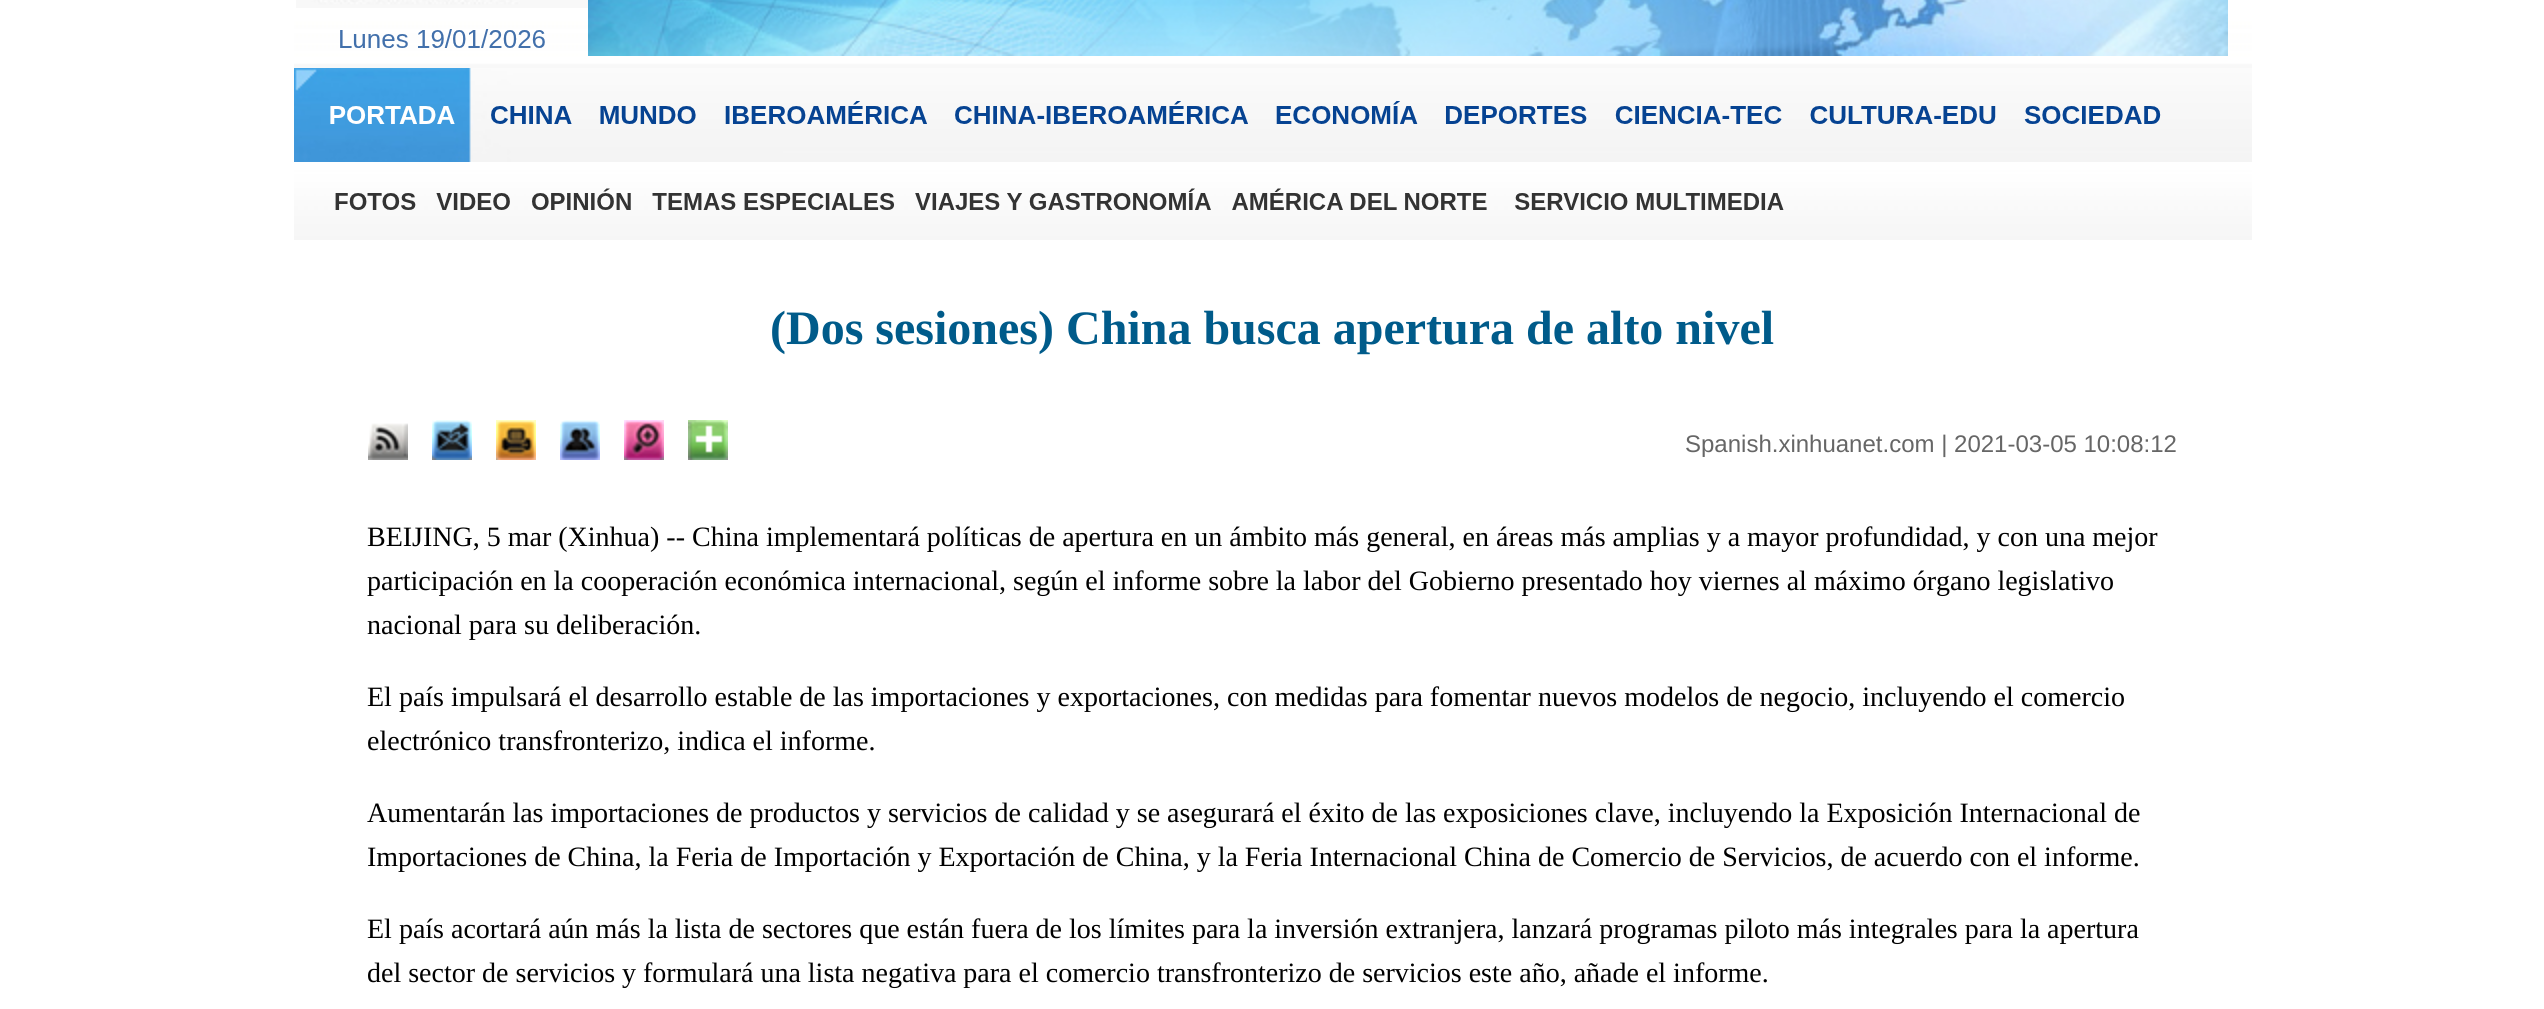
#include <cairo/cairo.h>
#include <math.h>
#include <stddef.h>

typedef struct { double x, y; const char *s; } line_t;
static cairo_t *cr;

static void rgb(unsigned color)
{
	cairo_set_source_rgb(cr, (color >> 16) / 255.0, (color >> 8 & 255) / 255.0, (color & 255) / 255.0);
}

static void image(const char *path, double x, double y, double w, double h)
{
	cairo_surface_t *image = cairo_image_surface_create_from_png(path);
	cairo_save(cr);
	cairo_set_source_surface(cr, image, x, y);
	cairo_rectangle(cr, x, y, w, h);
	cairo_fill(cr);
	cairo_restore(cr);
	cairo_surface_destroy(image);
}

int main(void) {
	cairo_surface_t *surface = cairo_image_surface_create(CAIRO_FORMAT_RGB24, 2544, 1009);
	cr = cairo_create(surface);
	cairo_font_options_t *options = cairo_font_options_create();
	cairo_font_options_set_hint_metrics(options, CAIRO_HINT_METRICS_OFF);
	cairo_font_options_set_hint_style(options, CAIRO_HINT_STYLE_NONE);
	cairo_set_font_options(cr, options);
	cairo_set_miter_limit(cr, 4);
	rgb(0xffffff);
	cairo_paint(cr);
	image("img/1.png", 294, 0, 1958, 240);
	image("img/2.png", 368, 423, 40, 37);
	image("img/3.png", 432, 420, 40, 40);
	image("img/4.png", 496, 420, 40, 40);
	image("img/5.png", 560, 420, 40, 40);
	image("img/6.png", 624, 420, 40, 40);
	image("img/7.png", 688, 420, 40, 40);
	cairo_select_font_face(cr, "Liberation Serif", CAIRO_FONT_SLANT_NORMAL, CAIRO_FONT_WEIGHT_BOLD);
	cairo_set_font_size(cr, 48);
	rgb(0x005b8a);
	cairo_move_to(cr, 770, 344);
	cairo_show_text(cr, "(Dos sesiones) China busca apertura de alto nivel");
	cairo_select_font_face(cr, "Liberation Sans", CAIRO_FONT_SLANT_NORMAL, CAIRO_FONT_WEIGHT_NORMAL);
	cairo_set_font_size(cr, 24);
	rgb(0x666666);
	cairo_move_to(cr, 1685, 452);
	cairo_show_text(cr, "Spanish.xinhuanet.com | 2021-03-05 10:08:12");
	cairo_select_font_face(cr, "Liberation Serif", CAIRO_FONT_SLANT_NORMAL, CAIRO_FONT_WEIGHT_NORMAL);
	cairo_set_font_size(cr, 28);
	rgb(0x000000);
	{
		static const line_t items[] = {
			{367, 546, "BEIJING, 5 mar (Xinhua) -- China implementará políticas de apertura en un ámbito más general, en áreas más amplias y a mayor profundidad, y con una mejor"},
			{367, 590, "participación en la cooperación económica internacional, según el informe sobre la labor del Gobierno presentado hoy viernes al máximo órgano legislativo"},
			{367, 634, "nacional para su deliberación."},
			{367, 706, "El país impulsará el desarrollo estable de las importaciones y exportaciones, con medidas para fomentar nuevos modelos de negocio, incluyendo el comercio"},
			{367, 750, "electrónico transfronterizo, indica el informe."},
			{367, 822, "Aumentarán las importaciones de productos y servicios de calidad y se asegurará el éxito de las exposiciones clave, incluyendo la Exposición Internacional de"},
			{367, 866, "Importaciones de China, la Feria de Importación y Exportación de China, y la Feria Internacional China de Comercio de Servicios, de acuerdo con el informe."},
			{367, 938, "El país acortará aún más la lista de sectores que están fuera de los límites para la inversión extranjera, lanzará programas piloto más integrales para la apertura"},
			{367, 982, "del sector de servicios y formulará una lista negativa para el comercio transfronterizo de servicios este año, añade el informe."},
		};
		for (size_t i = 0; i < sizeof items / sizeof *items; i++) {
			cairo_move_to(cr, items[i].x, items[i].y);
			cairo_show_text(cr, items[i].s);
		}
	}
	cairo_surface_write_to_png(surface, "page.png");
	cairo_font_options_destroy(options);
	cairo_destroy(cr);
	cairo_surface_destroy(surface);
	return 0;
}
